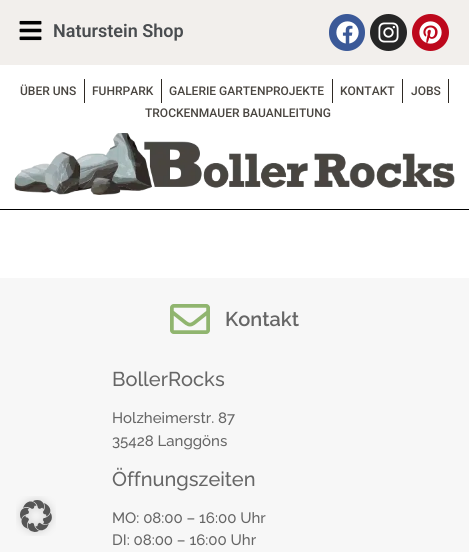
#include <cairo/cairo.h>
#include <math.h>
#include <stddef.h>

typedef struct { double x, y; const char *s; } line_t;
typedef struct { double x, y, w, h; unsigned color; } box_t;
static cairo_t *cr;

static void rgb(unsigned color)
{
	cairo_set_source_rgb(cr, (color >> 16) / 255.0, (color >> 8 & 255) / 255.0, (color & 255) / 255.0);
}

static void rrect(double x, double y, double w, double h, double r)
{
	cairo_new_sub_path(cr);
	cairo_arc(cr, x + w - r, y + h - r, r, 0, M_PI / 2);
	cairo_arc(cr, x + r, y + h - r, r, M_PI / 2, M_PI);
	cairo_arc(cr, x + r, y + r, r, M_PI, 1.5 * M_PI);
	cairo_arc(cr, x + w - r, y + r, r, 1.5 * M_PI, 2 * M_PI);
	cairo_close_path(cr);
}

static void image(const char *path, double x, double y, double w, double h)
{
	cairo_surface_t *image = cairo_image_surface_create_from_png(path);
	cairo_save(cr);
	cairo_set_source_surface(cr, image, x, y);
	cairo_rectangle(cr, x, y, w, h);
	cairo_fill(cr);
	cairo_restore(cr);
	cairo_surface_destroy(image);
}

int main(void) {
	cairo_surface_t *surface = cairo_image_surface_create(CAIRO_FORMAT_RGB24, 469, 552);
	cr = cairo_create(surface);
	cairo_font_options_t *options = cairo_font_options_create();
	cairo_font_options_set_hint_metrics(options, CAIRO_HINT_METRICS_OFF);
	cairo_font_options_set_hint_style(options, CAIRO_HINT_STYLE_NONE);
	cairo_set_font_options(cr, options);
	cairo_set_miter_limit(cr, 4);
	rgb(0xffffff);
	cairo_paint(cr);
	rgb(0xf2efec);
	cairo_rectangle(cr, 0, 0, 469, 65);
	cairo_fill(cr);
	image("img/1.png", 19, 20, 23, 21);
	rgb(0x3b5998);
	rrect(329, 14, 36, 37, 18);
	cairo_fill(cr);
	image("img/2.png", 336, 21, 23, 23);
	rgb(0x262626);
	cairo_arc(cr, 388.5, 32.5, 18.5, 0, 2 * M_PI);
	cairo_fill(cr);
	image("img/3.png", 378, 22, 21, 21);
	rgb(0xbd081c);
	cairo_arc(cr, 430.5, 32.5, 18.5, 0, 2 * M_PI);
	cairo_fill(cr);
	image("img/4.png", 419, 21, 23, 23);
	{
		static const box_t items[] = {
			{0, 209, 469, 1, 0x000000},
			{84, 79, 1, 24, 0x2e2923},
			{161, 79, 1, 24, 0x2e2923},
			{332, 79, 1, 24, 0x2e2923},
			{402, 79, 1, 24, 0x2e2923},
			{448, 79, 1, 24, 0x2e2923},
		};
		for (size_t i = 0; i < sizeof items / sizeof *items; i++) {
			rgb(items[i].color);
			cairo_rectangle(cr, items[i].x, items[i].y, items[i].w, items[i].h);
			cairo_fill(cr);
		}
	}
	image("img/5.png", 14, 133, 441, 62);
	rgb(0xf7f7f7);
	cairo_rectangle(cr, 0, 278, 469, 274);
	cairo_fill(cr);
	image("img/6.png", 16, 496, 40, 40);
	image("img/7.png", 170, 304, 40, 30);
	cairo_select_font_face(cr, "Roboto SemiBold", CAIRO_FONT_SLANT_NORMAL, CAIRO_FONT_WEIGHT_NORMAL);
	cairo_set_font_size(cr, 18);
	rgb(0x494c4f);
	cairo_move_to(cr, 53, 37);
	cairo_show_text(cr, "Naturstein Shop");
	cairo_select_font_face(cr, "Roboto Medium", CAIRO_FONT_SLANT_NORMAL, CAIRO_FONT_WEIGHT_NORMAL);
	cairo_set_font_size(cr, 12);
	rgb(0x494540);
	{
		static const line_t items[] = {
			{20, 95, "ÜBER UNS"},
			{92, 95, "FUHRPARK"},
			{169, 95, "GALERIE GARTENPROJEKTE"},
			{340, 95, "KONTAKT"},
			{411, 95, "JOBS"},
			{145, 117, "TROCKENMAUER BAUANLEITUNG"},
		};
		for (size_t i = 0; i < sizeof items / sizeof *items; i++) {
			cairo_move_to(cr, items[i].x, items[i].y);
			cairo_show_text(cr, items[i].s);
		}
	}
	cairo_select_font_face(cr, "Raleway SemiBold", CAIRO_FONT_SLANT_NORMAL, CAIRO_FONT_WEIGHT_NORMAL);
	cairo_set_font_size(cr, 20);
	rgb(0x666666);
	cairo_move_to(cr, 225, 326);
	cairo_show_text(cr, "Kontakt");
	cairo_select_font_face(cr, "Raleway Medium", CAIRO_FONT_SLANT_NORMAL, CAIRO_FONT_WEIGHT_NORMAL);
	cairo_move_to(cr, 112, 386);
	cairo_show_text(cr, "BollerRocks");
	cairo_set_font_size(cr, 15);
	cairo_move_to(cr, 112, 423);
	cairo_show_text(cr, "Holzheimerstr. 87");
	cairo_move_to(cr, 112, 446);
	cairo_show_text(cr, "35428 Langgöns");
	cairo_set_font_size(cr, 20);
	cairo_move_to(cr, 112, 486);
	cairo_show_text(cr, "Öffnungszeiten");
	cairo_set_font_size(cr, 15);
	cairo_move_to(cr, 112, 523);
	cairo_show_text(cr, "MO: 08:00 – 16:00 Uhr");
	cairo_move_to(cr, 112, 545);
	cairo_show_text(cr, "DI: 08:00 – 16:00 Uhr");
	cairo_surface_write_to_png(surface, "page.png");
	cairo_font_options_destroy(options);
	cairo_destroy(cr);
	cairo_surface_destroy(surface);
	return 0;
}
